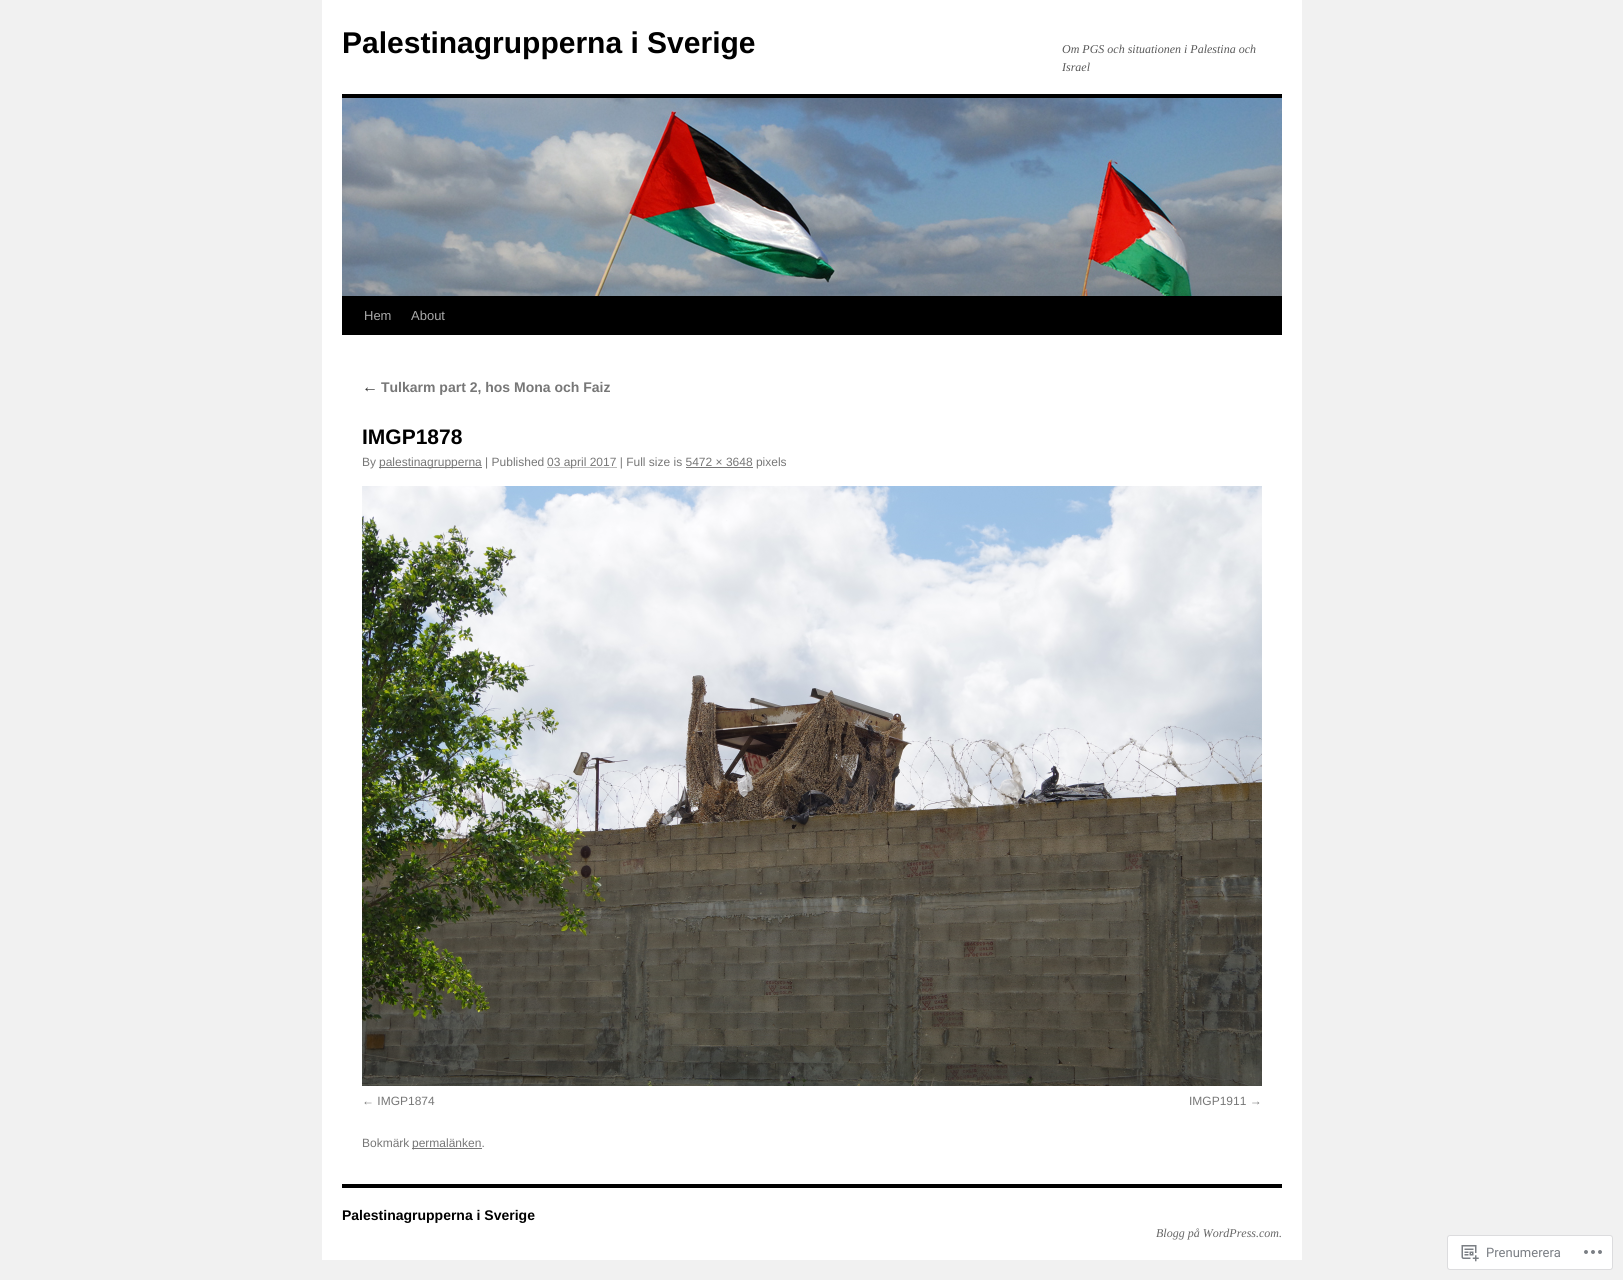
#include <cairo/cairo.h>
#include <math.h>
#include <stddef.h>

typedef struct { double x, y; const char *s; } line_t;
typedef struct { double x, y, w, h; unsigned color; } box_t;
static cairo_t *cr;

static void rgb(unsigned color)
{
	cairo_set_source_rgb(cr, (color >> 16) / 255.0, (color >> 8 & 255) / 255.0, (color & 255) / 255.0);
}

static void rrect(double x, double y, double w, double h, double r)
{
	cairo_new_sub_path(cr);
	cairo_arc(cr, x + w - r, y + h - r, r, 0, M_PI / 2);
	cairo_arc(cr, x + r, y + h - r, r, M_PI / 2, M_PI);
	cairo_arc(cr, x + r, y + r, r, M_PI, 1.5 * M_PI);
	cairo_arc(cr, x + w - r, y + r, r, 1.5 * M_PI, 2 * M_PI);
	cairo_close_path(cr);
}

static void image(const char *path, double x, double y, double w, double h)
{
	cairo_surface_t *image = cairo_image_surface_create_from_png(path);
	cairo_save(cr);
	cairo_set_source_surface(cr, image, x, y);
	cairo_rectangle(cr, x, y, w, h);
	cairo_fill(cr);
	cairo_restore(cr);
	cairo_surface_destroy(image);
}

int main(void) {
	cairo_surface_t *surface = cairo_image_surface_create(CAIRO_FORMAT_RGB24, 1623, 1280);
	cr = cairo_create(surface);
	cairo_font_options_t *options = cairo_font_options_create();
	cairo_font_options_set_hint_metrics(options, CAIRO_HINT_METRICS_OFF);
	cairo_font_options_set_hint_style(options, CAIRO_HINT_STYLE_NONE);
	cairo_set_font_options(cr, options);
	cairo_set_miter_limit(cr, 4);
	rgb(0xf1f1f1);
	cairo_paint(cr);
	{
		static const box_t items[] = {
			{322, 0, 980, 1260, 0xffffff},
			{342, 94, 940, 4, 0x000000},
			{342, 296, 940, 39, 0x000000},
		};
		for (size_t i = 0; i < sizeof items / sizeof *items; i++) {
			rgb(items[i].color);
			cairo_rectangle(cr, items[i].x, items[i].y, items[i].w, items[i].h);
			cairo_fill(cr);
		}
	}
	image("img/1.png", 342, 98, 940, 198);
	rgb(0x777777);
	cairo_rectangle(cr, 379, 467, 103, 1);
	cairo_fill(cr);
	cairo_new_path(cr);
	cairo_move_to(cr, 547.5, 467.5);
	cairo_line_to(cr, 617, 467.5);
	cairo_set_line_width(cr, 1);
	cairo_set_dash(cr, (double[]){1, 1}, 2, 0);
	cairo_stroke(cr);
	cairo_rectangle(cr, 686, 467, 67, 1);
	cairo_fill(cr);
	image("img/2.png", 362, 486, 900, 600);
	cairo_rectangle(cr, 412, 1148, 70, 1);
	cairo_fill(cr);
	rgb(0x000000);
	cairo_rectangle(cr, 342, 1184, 940, 4);
	cairo_fill(cr);
	rgb(0xffffff);
	rrect(1447.5, 1235.5, 165, 34, 2.5);
	cairo_fill_preserve(cr);
	rgb(0xdcdcde);
	cairo_set_dash(cr, NULL, 0, 0);
	cairo_stroke(cr);
	image("img/3.png", 1461, 1245, 18, 17);
	image("img/4.png", 1584, 1250, 18, 4);
	cairo_select_font_face(cr, "Liberation Sans", CAIRO_FONT_SLANT_NORMAL, CAIRO_FONT_WEIGHT_BOLD);
	cairo_set_font_size(cr, 30);
	rgb(0x000000);
	cairo_move_to(cr, 342, 53);
	cairo_show_text(cr, "Palestinagrupperna i Sverige");
	cairo_select_font_face(cr, "Liberation Serif", CAIRO_FONT_SLANT_ITALIC, CAIRO_FONT_WEIGHT_NORMAL);
	cairo_set_font_size(cr, 12);
	rgb(0x595959);
	cairo_move_to(cr, 1062, 53);
	cairo_show_text(cr, "Om PGS och situationen i Palestina och");
	cairo_move_to(cr, 1062, 71);
	cairo_show_text(cr, "Israel");
	cairo_select_font_face(cr, "Liberation Sans", CAIRO_FONT_SLANT_NORMAL, CAIRO_FONT_WEIGHT_NORMAL);
	cairo_set_font_size(cr, 13);
	rgb(0xaaaaaa);
	cairo_move_to(cr, 364, 320);
	cairo_show_text(cr, "Hem");
	cairo_move_to(cr, 411, 320);
	cairo_show_text(cr, "About");
	cairo_select_font_face(cr, "Liberation Serif", CAIRO_FONT_SLANT_ITALIC, CAIRO_FONT_WEIGHT_NORMAL);
	cairo_set_font_size(cr, 16);
	rgb(0x333333);
	cairo_move_to(cr, 362, 392);
	cairo_show_text(cr, "←");
	cairo_select_font_face(cr, "Liberation Sans", CAIRO_FONT_SLANT_NORMAL, CAIRO_FONT_WEIGHT_BOLD);
	cairo_set_font_size(cr, 14);
	rgb(0x777777);
	cairo_move_to(cr, 381, 392);
	cairo_show_text(cr, "Tulkarm part 2, hos Mona och Faiz");
	cairo_set_font_size(cr, 21);
	rgb(0x000000);
	cairo_move_to(cr, 362, 444);
	cairo_show_text(cr, "IMGP1878");
	cairo_select_font_face(cr, "Liberation Sans", CAIRO_FONT_SLANT_NORMAL, CAIRO_FONT_WEIGHT_NORMAL);
	cairo_set_font_size(cr, 12);
	rgb(0x777777);
	{
		static const line_t items[] = {
			{362, 466, "By"},
			{379, 466, "palestinagrupperna | Published"},
			{547, 466, "03 april 2017 | Full size is 5472 × 3648 pixels"},
			{362, 1105, "← IMGP1874"},
			{1189, 1105, "IMGP1911 →"},
			{362, 1147, "Bokmärk"},
			{412, 1147, "permalänken."},
		};
		for (size_t i = 0; i < sizeof items / sizeof *items; i++) {
			cairo_move_to(cr, items[i].x, items[i].y);
			cairo_show_text(cr, items[i].s);
		}
	}
	cairo_select_font_face(cr, "Liberation Sans", CAIRO_FONT_SLANT_NORMAL, CAIRO_FONT_WEIGHT_BOLD);
	cairo_set_font_size(cr, 14);
	rgb(0x000000);
	cairo_move_to(cr, 342, 1220);
	cairo_show_text(cr, "Palestinagrupperna i Sverige");
	cairo_select_font_face(cr, "Liberation Serif", CAIRO_FONT_SLANT_ITALIC, CAIRO_FONT_WEIGHT_NORMAL);
	cairo_set_font_size(cr, 12);
	rgb(0x666666);
	cairo_move_to(cr, 1156, 1237);
	cairo_show_text(cr, "Blogg på WordPress.com.");
	cairo_select_font_face(cr, "Roboto", CAIRO_FONT_SLANT_NORMAL, CAIRO_FONT_WEIGHT_NORMAL);
	cairo_set_font_size(cr, 13);
	rgb(0x7a7e84);
	cairo_move_to(cr, 1486, 1257);
	cairo_show_text(cr, "Prenumerera");
	cairo_surface_write_to_png(surface, "page.png");
	cairo_font_options_destroy(options);
	cairo_destroy(cr);
	cairo_surface_destroy(surface);
	return 0;
}
